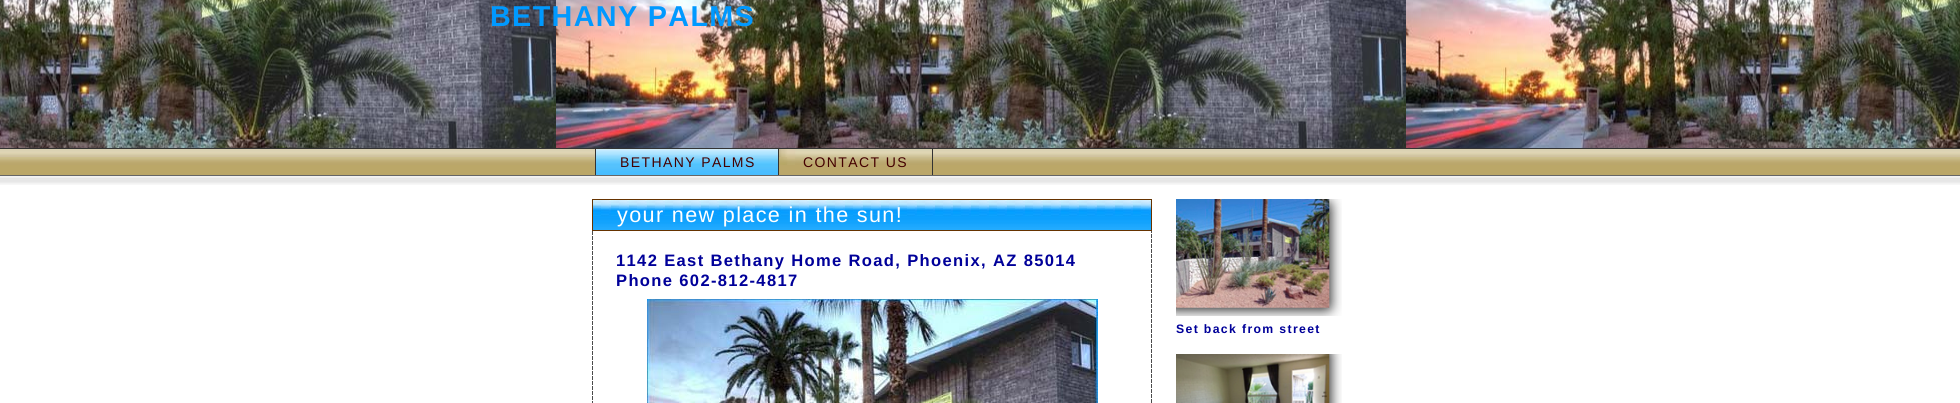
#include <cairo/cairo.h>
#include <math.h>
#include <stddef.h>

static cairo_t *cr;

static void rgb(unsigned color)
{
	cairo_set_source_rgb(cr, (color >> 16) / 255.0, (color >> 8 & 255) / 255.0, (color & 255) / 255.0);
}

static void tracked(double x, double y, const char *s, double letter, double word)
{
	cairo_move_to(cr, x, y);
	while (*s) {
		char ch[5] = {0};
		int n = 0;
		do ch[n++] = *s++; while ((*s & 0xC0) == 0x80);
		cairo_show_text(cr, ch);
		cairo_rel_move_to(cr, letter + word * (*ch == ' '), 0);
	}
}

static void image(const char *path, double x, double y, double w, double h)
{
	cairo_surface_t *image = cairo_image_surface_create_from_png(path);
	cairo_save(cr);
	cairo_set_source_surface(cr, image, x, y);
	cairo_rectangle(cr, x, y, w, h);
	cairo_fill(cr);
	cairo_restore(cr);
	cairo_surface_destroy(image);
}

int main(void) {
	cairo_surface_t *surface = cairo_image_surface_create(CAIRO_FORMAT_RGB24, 1960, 403);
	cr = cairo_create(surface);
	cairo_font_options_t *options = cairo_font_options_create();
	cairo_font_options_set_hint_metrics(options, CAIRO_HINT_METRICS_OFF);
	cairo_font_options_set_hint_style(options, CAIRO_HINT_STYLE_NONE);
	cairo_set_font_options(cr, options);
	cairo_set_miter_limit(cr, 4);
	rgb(0xffffff);
	cairo_paint(cr);
	image("img/1.png", 0, 0, 1960, 148);
	image("img/2.png", 0, 175, 1960, 10);
	rgb(0x333333);
	cairo_rectangle(cr, 0, 148, 1960, 1);
	cairo_fill(cr);
	image("img/3.png", 0, 149, 1960, 26);
	cairo_rectangle(cr, 595, 149, 1, 26);
	cairo_fill(cr);
	image("img/4.png", 596, 149, 182, 26);
	cairo_rectangle(cr, 778, 149, 1, 26);
	cairo_fill(cr);
	image("img/5.png", 779, 149, 153, 26);
	cairo_rectangle(cr, 932, 149, 1, 26);
	cairo_fill(cr);
	image("img/6.png", 1151, 231, 1, 172);
	image("img/7.png", 593, 200, 558, 30);
	cairo_rectangle(cr, 592.5, 199.5, 559, 31);
	rgb(0x663300);
	cairo_set_line_width(cr, 1);
	cairo_stroke(cr);
	image("img/8.png", 592, 231, 1, 172);
	image("img/9.png", 647, 299, 451, 104);
	image("img/10.png", 1176, 199, 166, 117);
	image("img/11.png", 1176, 354, 166, 49);
	cairo_select_font_face(cr, "Liberation Sans", CAIRO_FONT_SLANT_NORMAL, CAIRO_FONT_WEIGHT_BOLD);
	cairo_set_font_size(cr, 28.75);
	rgb(0x0099ff);
	tracked(490, 26, "BETHANY PALMS", 1.35, 0);
	cairo_select_font_face(cr, "Liberation Sans", CAIRO_FONT_SLANT_NORMAL, CAIRO_FONT_WEIGHT_NORMAL);
	cairo_set_font_size(cr, 14);
	rgb(0x440000);
	tracked(620, 167, "BETHANY PALMS", 1.4, 0);
	tracked(803, 167, "CONTACT US", 1.4, 0);
	cairo_set_font_size(cr, 21.6);
	rgb(0xffffff);
	tracked(617, 222, "your new place in the sun!", 1.35, 0);
	cairo_select_font_face(cr, "Liberation Sans", CAIRO_FONT_SLANT_NORMAL, CAIRO_FONT_WEIGHT_BOLD);
	cairo_set_font_size(cr, 16.55);
	rgb(0x000099);
	tracked(616, 266, "1142 East Bethany Home Road, Phoenix, AZ 85014", 1.35, 0);
	tracked(616, 286, "Phone 602-812-4817", 1.35, 0);
	cairo_set_font_size(cr, 12.25);
	tracked(1176, 333, "Set back from street", 1.35, 0);
	cairo_surface_write_to_png(surface, "page.png");
	cairo_font_options_destroy(options);
	cairo_destroy(cr);
	cairo_surface_destroy(surface);
	return 0;
}
